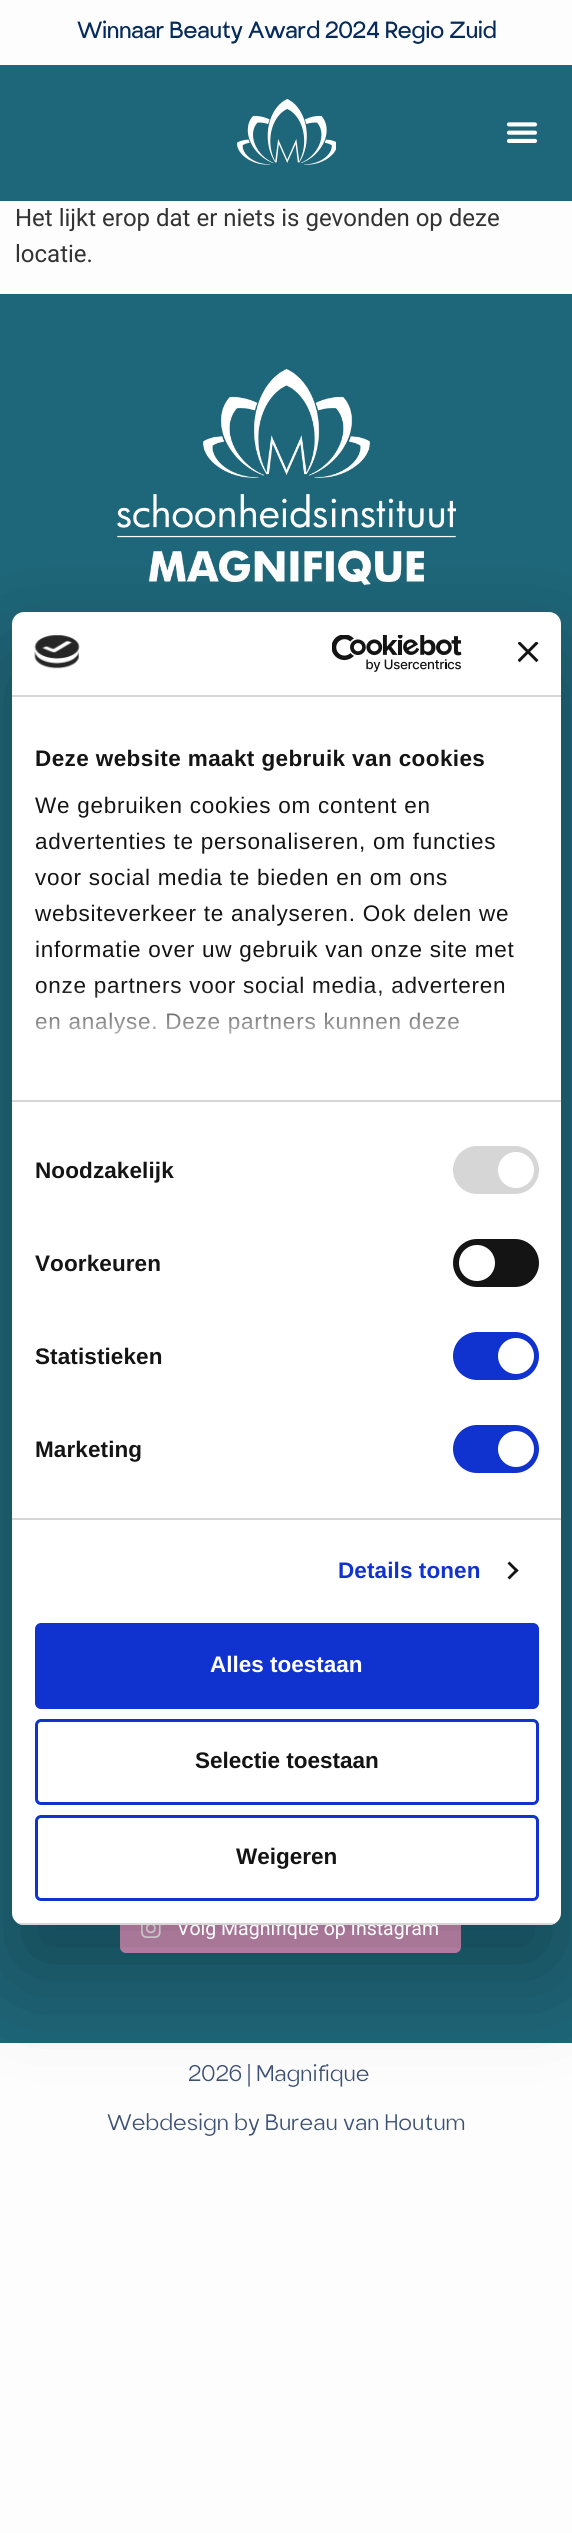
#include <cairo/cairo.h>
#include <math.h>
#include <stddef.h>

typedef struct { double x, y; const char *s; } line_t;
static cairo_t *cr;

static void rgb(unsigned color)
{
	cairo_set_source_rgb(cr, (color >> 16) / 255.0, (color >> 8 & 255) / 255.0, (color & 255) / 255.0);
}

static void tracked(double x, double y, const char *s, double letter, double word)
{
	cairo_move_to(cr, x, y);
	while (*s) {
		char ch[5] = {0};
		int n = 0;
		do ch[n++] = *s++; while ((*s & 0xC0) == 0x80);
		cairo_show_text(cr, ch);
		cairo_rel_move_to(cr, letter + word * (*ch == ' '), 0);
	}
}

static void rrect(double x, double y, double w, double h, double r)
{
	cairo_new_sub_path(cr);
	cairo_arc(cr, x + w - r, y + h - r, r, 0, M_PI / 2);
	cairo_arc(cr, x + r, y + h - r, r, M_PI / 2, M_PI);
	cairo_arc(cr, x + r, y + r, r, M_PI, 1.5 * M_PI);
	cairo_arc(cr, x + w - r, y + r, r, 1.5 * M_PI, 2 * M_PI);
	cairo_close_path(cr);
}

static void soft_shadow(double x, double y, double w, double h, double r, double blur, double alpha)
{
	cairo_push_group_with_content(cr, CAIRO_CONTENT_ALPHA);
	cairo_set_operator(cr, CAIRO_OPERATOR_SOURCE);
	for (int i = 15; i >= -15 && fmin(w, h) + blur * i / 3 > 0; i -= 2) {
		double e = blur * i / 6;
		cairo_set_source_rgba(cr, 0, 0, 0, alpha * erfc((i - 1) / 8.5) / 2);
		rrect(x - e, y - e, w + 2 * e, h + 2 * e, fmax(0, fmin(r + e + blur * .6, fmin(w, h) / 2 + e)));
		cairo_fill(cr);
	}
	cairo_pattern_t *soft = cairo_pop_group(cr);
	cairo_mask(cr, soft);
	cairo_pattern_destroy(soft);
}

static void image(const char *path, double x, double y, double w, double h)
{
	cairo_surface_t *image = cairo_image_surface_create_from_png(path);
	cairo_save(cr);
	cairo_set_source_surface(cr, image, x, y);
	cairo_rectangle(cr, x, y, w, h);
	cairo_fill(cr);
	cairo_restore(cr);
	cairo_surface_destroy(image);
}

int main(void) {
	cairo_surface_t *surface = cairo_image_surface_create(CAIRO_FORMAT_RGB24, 572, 2533);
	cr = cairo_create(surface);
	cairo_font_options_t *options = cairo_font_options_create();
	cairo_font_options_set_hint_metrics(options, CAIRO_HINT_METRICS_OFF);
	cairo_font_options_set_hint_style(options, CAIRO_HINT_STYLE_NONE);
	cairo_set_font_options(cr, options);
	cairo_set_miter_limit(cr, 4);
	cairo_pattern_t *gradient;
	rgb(0xfdfdfd);
	cairo_paint(cr);
	rgb(0x1e6679);
	cairo_rectangle(cr, 0, 65, 572, 136);
	cairo_fill(cr);
	image("img/1.png", 237, 99, 99, 66);
	image("img/2.png", 506, 122, 32, 21);
	cairo_rectangle(cr, 0, 294, 572, 1749);
	cairo_fill(cr);
	image("img/6.png", 117, 369, 339, 216);
	rgb(0xd998c3);
	rrect(120, 1904, 341, 49, 6);
	cairo_fill(cr);
	image("img/7.png", 141, 1925, 20, 13);
	rgb(0x000000);
	soft_shadow(12, 660, 549, 1313, 12, 51, 0.3);
	rgb(0xffffff);
	rrect(12, 612, 549, 1313, 12);
	cairo_fill(cr);
	rgb(0xd6d6d6);
	cairo_rectangle(cr, 12, 695, 549, 2);
	cairo_fill(cr);
	image("img/3.png", 34, 635, 46, 34);
	image("img/4.png", 332, 635, 130, 37);
	image("img/5.png", 518, 642, 21, 21);
	cairo_rectangle(cr, 12, 1100, 549, 2);
	cairo_fill(cr);
	cairo_rectangle(cr, 12, 1518, 549, 2);
	cairo_fill(cr);
	rrect(453, 1146, 86, 48, 24);
	cairo_fill(cr);
	rgb(0xffffff);
	cairo_arc(cr, 516, 1170, 18, 0, 2 * M_PI);
	cairo_fill(cr);
	rgb(0x141414);
	rrect(453, 1239, 86, 48, 24);
	cairo_fill(cr);
	rgb(0xffffff);
	cairo_arc(cr, 477, 1263, 18, 0, 2 * M_PI);
	cairo_fill(cr);
	rgb(0x1032cf);
	rrect(453, 1332, 86, 48, 24);
	cairo_fill(cr);
	rgb(0xffffff);
	cairo_arc(cr, 516, 1356, 18, 0, 2 * M_PI);
	cairo_fill(cr);
	rgb(0x1032cf);
	rrect(453, 1425, 86, 48, 24);
	cairo_fill(cr);
	rgb(0xffffff);
	cairo_arc(cr, 516, 1449, 18, 0, 2 * M_PI);
	cairo_fill(cr);
	rgb(0x141414);
	cairo_new_path(cr);
	cairo_move_to(cr, 509.5, 1561.5);
	cairo_line_to(cr, 518.5, 1570.5);
	cairo_line_to(cr, 516.5, 1572.5);
	cairo_line_to(cr, 507.5, 1563.5);
	cairo_close_path(cr);
	cairo_fill(cr);
	cairo_new_path(cr);
	cairo_move_to(cr, 516.5, 1568.5);
	cairo_line_to(cr, 518.5, 1570.5);
	cairo_line_to(cr, 509.5, 1579.5);
	cairo_line_to(cr, 507.5, 1577.5);
	cairo_close_path(cr);
	cairo_fill(cr);
	rgb(0x1032cf);
	rrect(36.5, 1624.5, 501, 83, 4.5);
	cairo_fill_preserve(cr);
	cairo_set_line_width(cr, 3);
	cairo_stroke(cr);
	rrect(36.5, 1720.5, 501, 83, 4.5);
	cairo_stroke(cr);
	rrect(36.5, 1816.5, 501, 83, 4.5);
	cairo_stroke(cr);
	cairo_select_font_face(cr, "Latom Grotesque", CAIRO_FONT_SLANT_NORMAL, CAIRO_FONT_WEIGHT_BOLD);
	cairo_set_font_size(cr, 22.5);
	rgb(0x062b5b);
	cairo_move_to(cr, 77, 38);
	cairo_show_text(cr, "Winnaar Beauty Award 2024 Regio Zuid");
	cairo_select_font_face(cr, "Roboto", CAIRO_FONT_SLANT_NORMAL, CAIRO_FONT_WEIGHT_NORMAL);
	cairo_set_font_size(cr, 24);
	rgb(0x333333);
	cairo_move_to(cr, 15, 226);
	cairo_show_text(cr, "Het lijkt erop dat er niets is gevonden op deze");
	cairo_move_to(cr, 15, 262);
	cairo_show_text(cr, "locatie.");
	cairo_select_font_face(cr, "Liberation Sans", CAIRO_FONT_SLANT_NORMAL, CAIRO_FONT_WEIGHT_BOLD);
	cairo_set_font_size(cr, 22.5);
	rgb(0x141414);
	tracked(35, 766, "Deze website maakt gebruik van cookies", 0.4, 0);
	cairo_select_font_face(cr, "Liberation Sans", CAIRO_FONT_SLANT_NORMAL, CAIRO_FONT_WEIGHT_NORMAL);
	{
		static const line_t items[] = {
			{35, 813, "We gebruiken cookies om content en"},
			{35, 849, "advertenties te personaliseren, om functies"},
			{35, 885, "voor social media te bieden en om ons"},
			{35, 921, "websiteverkeer te analyseren. Ook delen we"},
			{35, 957, "informatie over uw gebruik van onze site met"},
			{35, 993, "onze partners voor social media, adverteren"},
			{35, 1029, "en analyse. Deze partners kunnen deze"},
		};
		for (size_t i = 0; i < sizeof items / sizeof *items; i++) {
			tracked(items[i].x, items[i].y, items[i].s, 0.75, 0);
		}
	}
	gradient = cairo_pattern_create_linear(277, 1099, 277, 986);
	cairo_pattern_add_color_stop_rgba(gradient, 0, 1, 1, 1, 1);
	cairo_pattern_add_color_stop_rgba(gradient, 0.5, 1, 1, 1, 0.8);
	cairo_pattern_add_color_stop_rgba(gradient, 1, 1, 1, 1, 0);
	cairo_set_source(cr, gradient);
	cairo_pattern_destroy(gradient);
	cairo_rectangle(cr, 35, 988, 469, 46);
	cairo_fill(cr);
	cairo_select_font_face(cr, "Liberation Sans", CAIRO_FONT_SLANT_NORMAL, CAIRO_FONT_WEIGHT_BOLD);
	rgb(0x141414);
	{
		static const line_t items[] = {
			{35, 1178, "Noodzakelijk"},
			{35, 1271, "Voorkeuren"},
			{35, 1364, "Statistieken"},
			{35, 1457, "Marketing"},
		};
		for (size_t i = 0; i < sizeof items / sizeof *items; i++) {
			tracked(items[i].x, items[i].y, items[i].s, 0.1, 0);
		}
	}
	rgb(0x1032cf);
	tracked(338, 1578, "Details tonen", 0.1, 0);
	rgb(0xffffff);
	cairo_move_to(cr, 210, 1672);
	cairo_show_text(cr, "Alles toestaan");
	rgb(0x141414);
	cairo_move_to(cr, 195, 1768);
	cairo_show_text(cr, "Selectie toestaan");
	cairo_move_to(cr, 236, 1864);
	cairo_show_text(cr, "Weigeren");
	cairo_select_font_face(cr, "Roboto", CAIRO_FONT_SLANT_NORMAL, CAIRO_FONT_WEIGHT_NORMAL);
	cairo_set_font_size(cr, 19.5);
	rgb(0xffffff);
	cairo_move_to(cr, 177, 1935);
	cairo_show_text(cr, "Volg Magnifique op Instagram");
	cairo_save(cr);
	rrect(12, 612, 549, 1313, 12);
	cairo_clip(cr);
	rgb(0xd6d6d6);
	cairo_rectangle(cr, 12, 1923, 549, 2);
	cairo_fill(cr);
	cairo_restore(cr);
	cairo_select_font_face(cr, "Latom Grotesque", CAIRO_FONT_SLANT_NORMAL, CAIRO_FONT_WEIGHT_NORMAL);
	cairo_set_font_size(cr, 22.5);
	rgb(0x3b5073);
	cairo_move_to(cr, 188, 2081);
	cairo_show_text(cr, "2026 | Magnifique");
	cairo_move_to(cr, 107, 2130);
	cairo_show_text(cr, "Webdesign by Bureau van Houtum");
	cairo_surface_write_to_png(surface, "page.png");
	cairo_font_options_destroy(options);
	cairo_destroy(cr);
	cairo_surface_destroy(surface);
	return 0;
}
